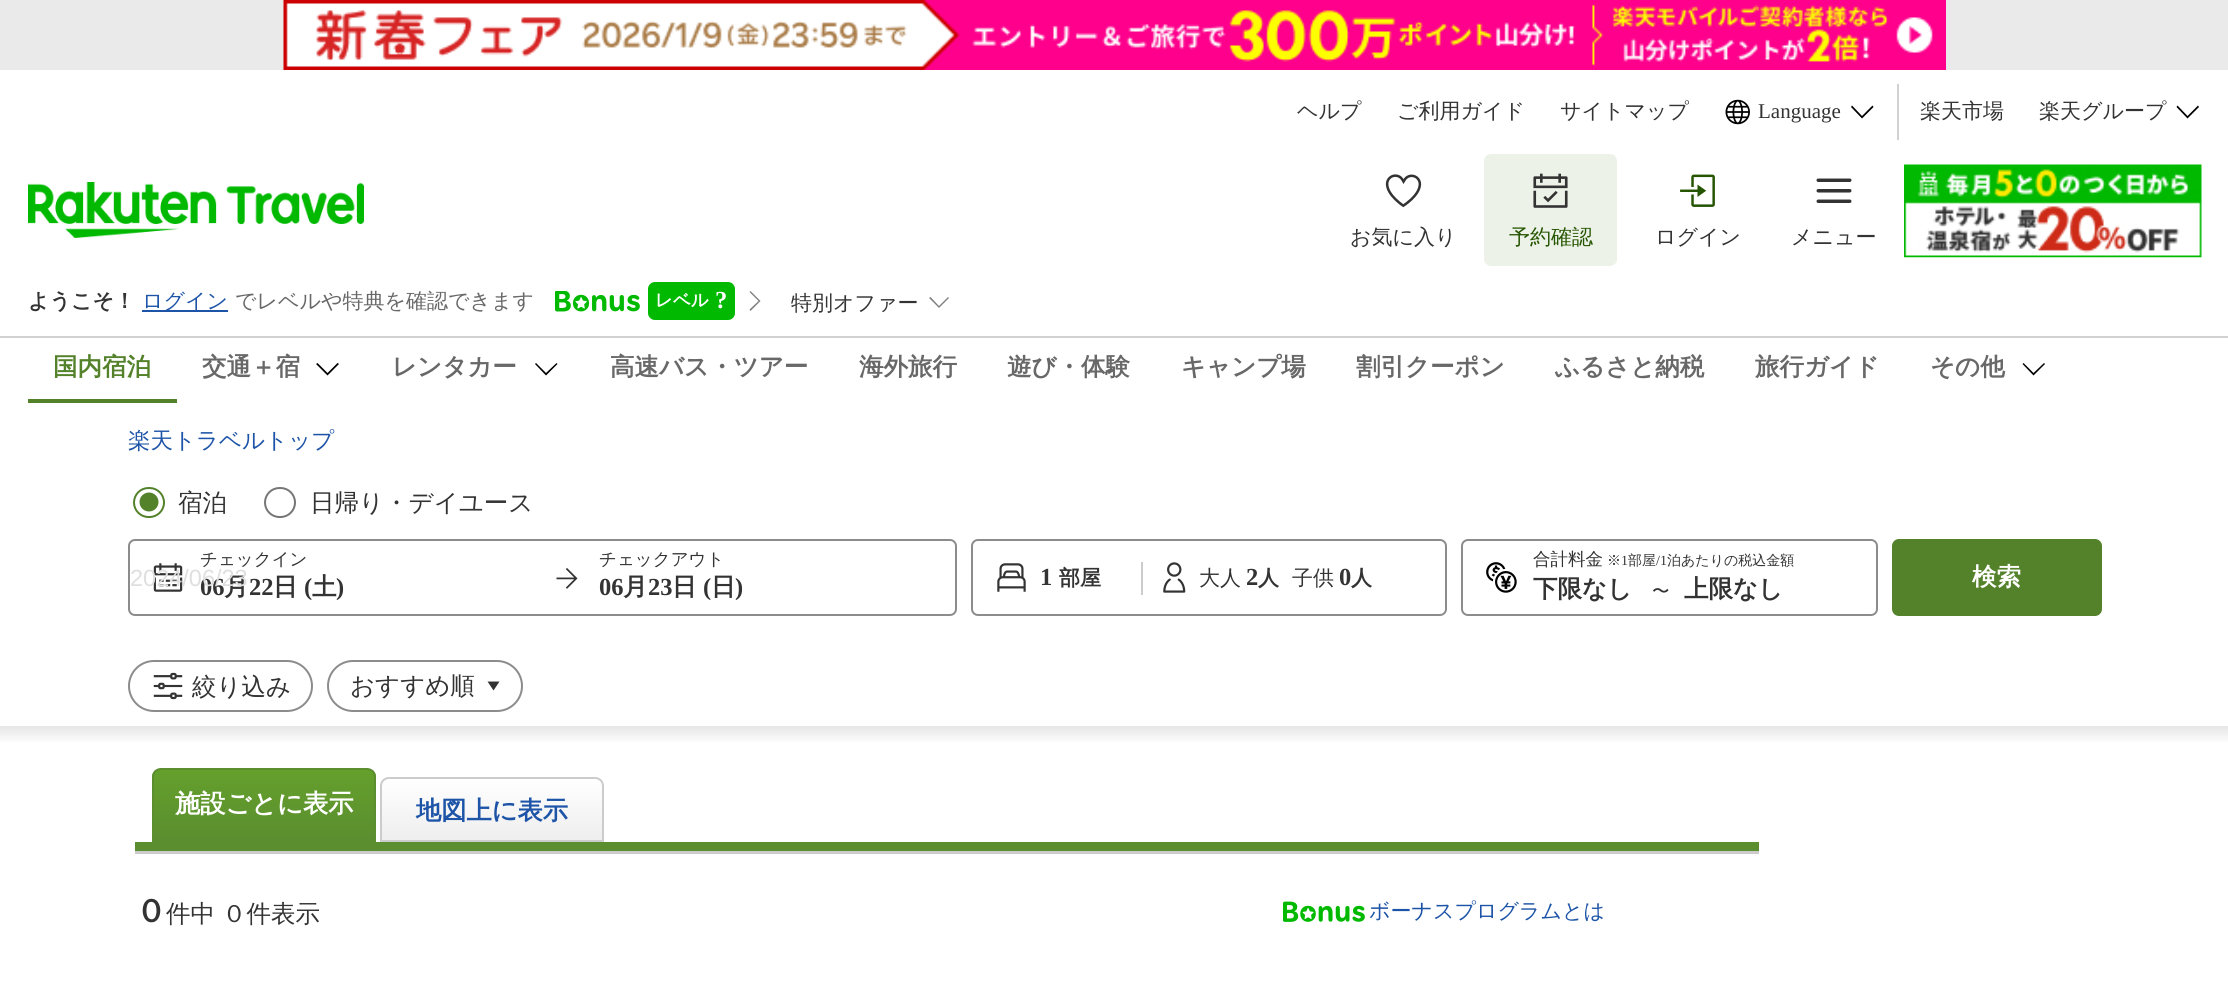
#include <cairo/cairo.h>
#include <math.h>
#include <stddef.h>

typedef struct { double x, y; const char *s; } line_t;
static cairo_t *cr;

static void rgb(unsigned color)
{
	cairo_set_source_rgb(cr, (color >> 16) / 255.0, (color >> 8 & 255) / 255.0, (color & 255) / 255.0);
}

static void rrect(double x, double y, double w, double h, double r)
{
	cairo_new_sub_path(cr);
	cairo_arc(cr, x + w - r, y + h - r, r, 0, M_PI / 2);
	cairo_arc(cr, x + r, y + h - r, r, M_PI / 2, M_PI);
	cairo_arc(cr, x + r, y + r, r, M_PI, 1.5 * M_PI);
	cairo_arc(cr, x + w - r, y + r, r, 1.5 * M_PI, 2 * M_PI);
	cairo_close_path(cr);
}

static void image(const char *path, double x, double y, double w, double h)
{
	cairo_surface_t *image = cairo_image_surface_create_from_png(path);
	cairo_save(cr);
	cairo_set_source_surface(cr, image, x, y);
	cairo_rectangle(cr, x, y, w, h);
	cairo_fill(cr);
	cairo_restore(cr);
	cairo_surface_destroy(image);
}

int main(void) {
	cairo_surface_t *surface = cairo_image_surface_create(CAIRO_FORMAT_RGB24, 2228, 1002);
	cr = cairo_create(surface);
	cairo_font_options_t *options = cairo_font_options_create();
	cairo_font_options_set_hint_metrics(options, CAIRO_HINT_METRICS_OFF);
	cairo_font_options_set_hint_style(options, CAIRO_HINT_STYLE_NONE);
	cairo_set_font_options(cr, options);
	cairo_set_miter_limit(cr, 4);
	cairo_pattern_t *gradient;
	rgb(0xffffff);
	cairo_paint(cr);
	rgb(0xeaeaea);
	cairo_rectangle(cr, 0, 0, 2228, 70);
	cairo_fill(cr);
	image("img/1.png", 283, 0, 1663, 70);
	image("img/2.png", 1725, 99, 25, 26);
	rgb(0x000000);
	cairo_set_fill_rule(cr, CAIRO_FILL_RULE_EVEN_ODD);
	cairo_new_path(cr);
	cairo_move_to(cr, 1873.5, 107);
	cairo_line_to(cr, 1872.5, 105.5);
	cairo_line_to(cr, 1862, 116);
	cairo_line_to(cr, 1852, 105.5);
	cairo_line_to(cr, 1851, 107);
	cairo_line_to(cr, 1862, 118.5);
	cairo_close_path(cr);
	cairo_fill(cr);
	rgb(0xd1d1d1);
	cairo_rectangle(cr, 1897, 84, 2, 56);
	cairo_fill(cr);
	rgb(0x000000);
	cairo_new_path(cr);
	cairo_move_to(cr, 2199, 107);
	cairo_line_to(cr, 2198, 105.5);
	cairo_line_to(cr, 2187.5, 116);
	cairo_line_to(cr, 2177.5, 105.5);
	cairo_line_to(cr, 2176.5, 107);
	cairo_line_to(cr, 2187.5, 118.5);
	cairo_close_path(cr);
	cairo_fill(cr);
	image("img/3.png", 28, 182, 336, 56);
	image("img/4.png", 1385, 174, 37, 34);
	rgb(0xedf2e9);
	rrect(1484, 154, 133, 112, 7);
	cairo_fill(cr);
	image("img/5.png", 1533, 173, 35, 35);
	image("img/6.png", 1680, 174, 35, 33);
	image("img/7.png", 1816, 178, 36, 25);
	image("img/8.png", 1904, 164, 298, 94);
	rgb(0x1d54a7);
	cairo_rectangle(cr, 142, 310, 86, 2);
	cairo_fill(cr);
	image("img/9.png", 555, 291, 85, 21);
	rgb(0x00b900);
	rrect(648, 282, 87, 38, 7);
	cairo_fill(cr);
	rgb(0x828282);
	cairo_new_path(cr);
	cairo_move_to(cr, 750.5, 291);
	cairo_line_to(cr, 749.5, 292);
	cairo_line_to(cr, 758.5, 301);
	cairo_line_to(cr, 749.5, 309.5);
	cairo_line_to(cr, 750.5, 311);
	cairo_line_to(cr, 760.5, 301);
	cairo_close_path(cr);
	cairo_fill(cr);
	cairo_new_path(cr);
	cairo_move_to(cr, 949, 298);
	cairo_line_to(cr, 948, 297);
	cairo_line_to(cr, 939, 306);
	cairo_line_to(cr, 930.5, 297);
	cairo_line_to(cr, 929, 298);
	cairo_line_to(cr, 939, 308);
	cairo_close_path(cr);
	cairo_fill(cr);
	rgb(0xd1d1d1);
	cairo_rectangle(cr, 0, 336, 2228, 2);
	cairo_fill(cr);
	rgb(0x54822b);
	cairo_rectangle(cr, 28, 399, 149, 4);
	cairo_fill(cr);
	rgb(0x000000);
	cairo_new_path(cr);
	cairo_move_to(cr, 339, 364);
	cairo_line_to(cr, 337.5, 363);
	cairo_line_to(cr, 327.5, 373);
	cairo_line_to(cr, 317.5, 363);
	cairo_line_to(cr, 316, 364);
	cairo_line_to(cr, 327.5, 375.5);
	cairo_close_path(cr);
	cairo_fill(cr);
	cairo_new_path(cr);
	cairo_move_to(cr, 557.5, 364);
	cairo_line_to(cr, 556.5, 363);
	cairo_line_to(cr, 546, 373);
	cairo_line_to(cr, 536, 363);
	cairo_line_to(cr, 535, 364);
	cairo_line_to(cr, 546, 375.5);
	cairo_close_path(cr);
	cairo_fill(cr);
	cairo_new_path(cr);
	cairo_move_to(cr, 2045, 364);
	cairo_line_to(cr, 2044, 363);
	cairo_line_to(cr, 2033.5, 373);
	cairo_line_to(cr, 2023.5, 363);
	cairo_line_to(cr, 2022.5, 364);
	cairo_line_to(cr, 2033.5, 375.5);
	cairo_close_path(cr);
	cairo_fill(cr);
	rrect(134, 488, 30, 29, 14.5);
	rgb(0x54822b);
	cairo_stroke(cr);
	cairo_arc(cr, 149, 502, 9.5, 0, 2 * M_PI);
	cairo_fill(cr);
	rrect(265, 488, 30, 29, 14.5);
	rgb(0x767676);
	cairo_stroke(cr);
	rrect(129, 540, 827, 75, 6);
	rgb(0x8c8c8c);
	cairo_stroke(cr);
	image("img/10.png", 556, 568, 22, 21);
	image("img/11.png", 153, 563, 30, 29);
	rrect(972, 540, 474, 75, 6);
	cairo_stroke(cr);
	rgb(0xcccccc);
	cairo_rectangle(cr, 1141, 562, 2, 33);
	cairo_fill(cr);
	image("img/12.png", 997, 563, 29, 29);
	image("img/13.png", 1163, 562, 23, 31);
	rrect(1462, 540, 415, 75, 6);
	rgb(0x8c8c8c);
	cairo_stroke(cr);
	image("img/14.png", 1486, 562, 31, 31);
	rgb(0x54822b);
	rrect(1892, 539, 210, 77, 7);
	cairo_fill(cr);
	rrect(129, 661, 183, 50, 25);
	rgb(0x8c8c8c);
	cairo_stroke(cr);
	image("img/15.png", 153, 672, 30, 28);
	rrect(328, 661, 194, 50, 25);
	cairo_stroke(cr);
	rgb(0x333333);
	cairo_new_path(cr);
	cairo_move_to(cr, 493.5, 690.5);
	cairo_line_to(cr, 487.5, 681.5);
	cairo_line_to(cr, 499.5, 681.5);
	cairo_close_path(cr);
	cairo_fill(cr);
	gradient = cairo_pattern_create_linear(1115, 744, 1115, 726);
	cairo_pattern_add_color_stop_rgba(gradient, 0, 1, 1, 1, 1);
	cairo_pattern_add_color_stop_rgba(gradient, 1, 0.902, 0.902, 0.902, 1);
	cairo_set_source(cr, gradient);
	cairo_pattern_destroy(gradient);
	cairo_rectangle(cr, 0, 726, 2228, 16);
	cairo_fill(cr);
	rgb(0xcccccc);
	cairo_set_fill_rule(cr, CAIRO_FILL_RULE_WINDING);
	cairo_new_path(cr);
	cairo_move_to(cr, 135, 850);
	cairo_line_to(cr, 135, 854);
	cairo_line_to(cr, 1759, 854);
	cairo_line_to(cr, 1759, 772);
	cairo_line_to(cr, 1759, 850);
	cairo_close_path(cr);
	cairo_fill(cr);
	rgb(0x5a8e2f);
	cairo_rectangle(cr, 135, 842, 1624, 9);
	cairo_fill(cr);
	cairo_save(cr);
	cairo_new_path(cr);
	cairo_move_to(cr, 161, 768);
	cairo_line_to(cr, 367, 768);
	cairo_curve_to(cr, 372, 768, 376, 772, 376, 777);
	cairo_line_to(cr, 376, 842);
	cairo_line_to(cr, 152, 842);
	cairo_line_to(cr, 152, 777);
	cairo_curve_to(cr, 152, 772, 156, 768, 161, 768);
	cairo_close_path(cr);
	cairo_clip(cr);
	gradient = cairo_pattern_create_linear(264, 770, 264, 840);
	cairo_pattern_add_color_stop_rgba(gradient, 0, 0.396, 0.627, 0.173, 1);
	cairo_pattern_add_color_stop_rgba(gradient, 1, 0.353, 0.557, 0.184, 1);
	cairo_set_source(cr, gradient);
	cairo_pattern_destroy(gradient);
	cairo_rectangle(cr, 152, 770, 224, 70);
	cairo_fill(cr);
	cairo_restore(cr);
	cairo_new_path(cr);
	cairo_move_to(cr, 161, 769);
	cairo_line_to(cr, 367, 769);
	cairo_curve_to(cr, 371.5, 769, 375, 772.5, 375, 777);
	cairo_line_to(cr, 375, 841);
	cairo_line_to(cr, 153, 841);
	cairo_line_to(cr, 153, 777);
	cairo_curve_to(cr, 153, 772.5, 156.5, 769, 161, 769);
	cairo_close_path(cr);
	cairo_stroke(cr);
	cairo_save(cr);
	cairo_new_path(cr);
	cairo_move_to(cr, 389, 777);
	cairo_line_to(cr, 595, 777);
	cairo_curve_to(cr, 600, 777, 604, 781, 604, 786);
	cairo_line_to(cr, 604, 842);
	cairo_line_to(cr, 380, 842);
	cairo_line_to(cr, 380, 786);
	cairo_curve_to(cr, 380, 781, 384, 777, 389, 777);
	cairo_close_path(cr);
	cairo_clip(cr);
	gradient = cairo_pattern_create_linear(492, 779, 492, 840);
	cairo_pattern_add_color_stop_rgba(gradient, 0, 1, 1, 1, 1);
	cairo_pattern_add_color_stop_rgba(gradient, 1, 0.933, 0.933, 0.933, 1);
	cairo_set_source(cr, gradient);
	cairo_pattern_destroy(gradient);
	cairo_rectangle(cr, 380, 779, 224, 61);
	cairo_fill(cr);
	cairo_restore(cr);
	cairo_new_path(cr);
	cairo_move_to(cr, 389, 778);
	cairo_line_to(cr, 595, 778);
	cairo_curve_to(cr, 599.5, 778, 603, 781.5, 603, 786);
	cairo_line_to(cr, 603, 841);
	cairo_line_to(cr, 381, 841);
	cairo_line_to(cr, 381, 786);
	cairo_curve_to(cr, 381, 781.5, 384.5, 778, 389, 778);
	cairo_close_path(cr);
	rgb(0xcccccc);
	cairo_stroke(cr);
	image("img/16.png", 1283, 901, 82, 21);
	cairo_select_font_face(cr, "WenQuanYi Zen Hei Medium", CAIRO_FONT_SLANT_NORMAL, CAIRO_FONT_WEIGHT_NORMAL);
	cairo_set_font_size(cr, 21);
	rgb(0x333333);
	{
		static const line_t items[] = {
			{1297, 118, "ヘルプ"},
			{1397, 118, "ご利用ガイド"},
			{1560, 118, "サイトマップ"},
		};
		for (size_t i = 0; i < sizeof items / sizeof *items; i++) {
			cairo_move_to(cr, items[i].x, items[i].y);
			cairo_show_text(cr, items[i].s);
		}
	}
	cairo_select_font_face(cr, "Liberation Serif", CAIRO_FONT_SLANT_NORMAL, CAIRO_FONT_WEIGHT_NORMAL);
	cairo_move_to(cr, 1758, 118);
	cairo_show_text(cr, "Language");
	cairo_select_font_face(cr, "WenQuanYi Zen Hei Medium", CAIRO_FONT_SLANT_NORMAL, CAIRO_FONT_WEIGHT_NORMAL);
	{
		static const line_t items[] = {
			{1920, 118, "楽天市場"},
			{2039, 118, "楽天グループ"},
			{1350, 244, "お気に入り"},
		};
		for (size_t i = 0; i < sizeof items / sizeof *items; i++) {
			cairo_move_to(cr, items[i].x, items[i].y);
			cairo_show_text(cr, items[i].s);
		}
	}
	rgb(0x255500);
	cairo_move_to(cr, 1509, 244);
	cairo_show_text(cr, "予約確認");
	rgb(0x333333);
	cairo_move_to(cr, 1655, 244);
	cairo_show_text(cr, "ログイン");
	cairo_move_to(cr, 1791, 244);
	cairo_show_text(cr, "メニュー");
	cairo_select_font_face(cr, "WenQuanYi Zen Hei", CAIRO_FONT_SLANT_NORMAL, CAIRO_FONT_WEIGHT_BOLD);
	cairo_move_to(cr, 28, 308);
	cairo_show_text(cr, "ようこそ！");
	cairo_select_font_face(cr, "WenQuanYi Zen Hei Medium", CAIRO_FONT_SLANT_NORMAL, CAIRO_FONT_WEIGHT_NORMAL);
	rgb(0x1d54a7);
	cairo_move_to(cr, 142, 308);
	cairo_show_text(cr, "ログイン");
	rgb(0x686868);
	cairo_move_to(cr, 235, 308);
	cairo_show_text(cr, "でレベルや特典を確認できます");
	cairo_select_font_face(cr, "WenQuanYi Zen Hei", CAIRO_FONT_SLANT_NORMAL, CAIRO_FONT_WEIGHT_BOLD);
	cairo_set_font_size(cr, 17.5);
	rgb(0xffffff);
	cairo_move_to(cr, 655, 306);
	cairo_show_text(cr, "レベル");
	cairo_select_font_face(cr, "Liberation Serif", CAIRO_FONT_SLANT_NORMAL, CAIRO_FONT_WEIGHT_BOLD);
	cairo_set_font_size(cr, 24.5);
	cairo_move_to(cr, 715, 308);
	cairo_show_text(cr, "?");
	cairo_select_font_face(cr, "WenQuanYi Zen Hei Medium", CAIRO_FONT_SLANT_NORMAL, CAIRO_FONT_WEIGHT_NORMAL);
	cairo_set_font_size(cr, 21);
	rgb(0x333333);
	cairo_move_to(cr, 791, 310);
	cairo_show_text(cr, "特別オファー");
	cairo_select_font_face(cr, "WenQuanYi Zen Hei", CAIRO_FONT_SLANT_NORMAL, CAIRO_FONT_WEIGHT_BOLD);
	cairo_set_font_size(cr, 24.5);
	rgb(0x54822b);
	cairo_move_to(cr, 53, 375);
	cairo_show_text(cr, "国内宿泊");
	rgb(0x686868);
	{
		static const line_t items[] = {
			{202, 375, "交通＋宿"},
			{392, 375, "レンタカー"},
			{610, 375, "高速バス・ツアー"},
			{859, 375, "海外旅行"},
			{1007, 375, "遊び・体験"},
			{1181, 375, "キャンプ場"},
			{1356, 375, "割引クーポン"},
			{1555, 375, "ふるさと納税"},
			{1755, 375, "旅行ガイド"},
			{1930, 375, "その他"},
		};
		for (size_t i = 0; i < sizeof items / sizeof *items; i++) {
			cairo_move_to(cr, items[i].x, items[i].y);
			cairo_show_text(cr, items[i].s);
		}
	}
	cairo_select_font_face(cr, "WenQuanYi Zen Hei Medium", CAIRO_FONT_SLANT_NORMAL, CAIRO_FONT_WEIGHT_NORMAL);
	cairo_set_font_size(cr, 22.5);
	rgb(0x1d54a7);
	cairo_move_to(cr, 128, 448);
	cairo_show_text(cr, "楽天トラベルトップ");
	cairo_set_font_size(cr, 24.5);
	rgb(0x333333);
	cairo_move_to(cr, 178, 511);
	cairo_show_text(cr, "宿泊");
	cairo_move_to(cr, 310, 511);
	cairo_show_text(cr, "日帰り・デイユース");
	cairo_set_font_size(cr, 17.5);
	cairo_move_to(cr, 200, 565);
	cairo_show_text(cr, "チェックイン");
	cairo_select_font_face(cr, "Liberation Serif", CAIRO_FONT_SLANT_NORMAL, CAIRO_FONT_WEIGHT_BOLD);
	cairo_set_font_size(cr, 24.5);
	cairo_move_to(cr, 200, 595);
	cairo_show_text(cr, "06");
	cairo_select_font_face(cr, "WenQuanYi Zen Hei", CAIRO_FONT_SLANT_NORMAL, CAIRO_FONT_WEIGHT_BOLD);
	cairo_move_to(cr, 224, 595);
	cairo_show_text(cr, "月");
	cairo_select_font_face(cr, "Liberation Sans", CAIRO_FONT_SLANT_NORMAL, CAIRO_FONT_WEIGHT_NORMAL);
	cairo_set_font_size(cr, 23.5);
	rgb(0xdfdfdf);
	cairo_move_to(cr, 130, 586);
	cairo_show_text(cr, "2024/06/23");
	cairo_select_font_face(cr, "Liberation Serif", CAIRO_FONT_SLANT_NORMAL, CAIRO_FONT_WEIGHT_BOLD);
	cairo_set_font_size(cr, 24.5);
	rgb(0x333333);
	cairo_move_to(cr, 249, 595);
	cairo_show_text(cr, "22");
	cairo_select_font_face(cr, "WenQuanYi Zen Hei", CAIRO_FONT_SLANT_NORMAL, CAIRO_FONT_WEIGHT_BOLD);
	cairo_move_to(cr, 273, 595);
	cairo_show_text(cr, "日");
	cairo_select_font_face(cr, "Liberation Serif", CAIRO_FONT_SLANT_NORMAL, CAIRO_FONT_WEIGHT_BOLD);
	cairo_move_to(cr, 304, 595);
	cairo_show_text(cr, "(");
	cairo_select_font_face(cr, "WenQuanYi Zen Hei", CAIRO_FONT_SLANT_NORMAL, CAIRO_FONT_WEIGHT_BOLD);
	cairo_move_to(cr, 312, 595);
	cairo_show_text(cr, "土");
	cairo_select_font_face(cr, "Liberation Serif", CAIRO_FONT_SLANT_NORMAL, CAIRO_FONT_WEIGHT_BOLD);
	cairo_move_to(cr, 336, 595);
	cairo_show_text(cr, ")");
	cairo_select_font_face(cr, "WenQuanYi Zen Hei Medium", CAIRO_FONT_SLANT_NORMAL, CAIRO_FONT_WEIGHT_NORMAL);
	cairo_set_font_size(cr, 17.5);
	cairo_move_to(cr, 599, 565);
	cairo_show_text(cr, "チェックアウト");
	cairo_select_font_face(cr, "Liberation Serif", CAIRO_FONT_SLANT_NORMAL, CAIRO_FONT_WEIGHT_BOLD);
	cairo_set_font_size(cr, 24.5);
	cairo_move_to(cr, 599, 595);
	cairo_show_text(cr, "06");
	cairo_select_font_face(cr, "WenQuanYi Zen Hei", CAIRO_FONT_SLANT_NORMAL, CAIRO_FONT_WEIGHT_BOLD);
	cairo_move_to(cr, 623, 595);
	cairo_show_text(cr, "月");
	cairo_select_font_face(cr, "Liberation Serif", CAIRO_FONT_SLANT_NORMAL, CAIRO_FONT_WEIGHT_BOLD);
	cairo_move_to(cr, 648, 595);
	cairo_show_text(cr, "23");
	cairo_select_font_face(cr, "WenQuanYi Zen Hei", CAIRO_FONT_SLANT_NORMAL, CAIRO_FONT_WEIGHT_BOLD);
	cairo_move_to(cr, 672, 595);
	cairo_show_text(cr, "日");
	cairo_select_font_face(cr, "Liberation Serif", CAIRO_FONT_SLANT_NORMAL, CAIRO_FONT_WEIGHT_BOLD);
	cairo_move_to(cr, 703, 595);
	cairo_show_text(cr, "(");
	cairo_select_font_face(cr, "WenQuanYi Zen Hei", CAIRO_FONT_SLANT_NORMAL, CAIRO_FONT_WEIGHT_BOLD);
	cairo_move_to(cr, 711, 595);
	cairo_show_text(cr, "日");
	cairo_select_font_face(cr, "Liberation Serif", CAIRO_FONT_SLANT_NORMAL, CAIRO_FONT_WEIGHT_BOLD);
	cairo_move_to(cr, 735, 595);
	cairo_show_text(cr, ")");
	cairo_move_to(cr, 1040, 585);
	cairo_show_text(cr, "1");
	cairo_select_font_face(cr, "WenQuanYi Zen Hei", CAIRO_FONT_SLANT_NORMAL, CAIRO_FONT_WEIGHT_BOLD);
	cairo_set_font_size(cr, 21);
	cairo_move_to(cr, 1059, 585);
	cairo_show_text(cr, "部屋");
	cairo_select_font_face(cr, "WenQuanYi Zen Hei Medium", CAIRO_FONT_SLANT_NORMAL, CAIRO_FONT_WEIGHT_NORMAL);
	cairo_move_to(cr, 1199, 585);
	cairo_show_text(cr, "大人");
	cairo_select_font_face(cr, "Liberation Serif", CAIRO_FONT_SLANT_NORMAL, CAIRO_FONT_WEIGHT_BOLD);
	cairo_set_font_size(cr, 24.5);
	cairo_move_to(cr, 1246, 585);
	cairo_show_text(cr, "2");
	cairo_select_font_face(cr, "WenQuanYi Zen Hei", CAIRO_FONT_SLANT_NORMAL, CAIRO_FONT_WEIGHT_BOLD);
	cairo_set_font_size(cr, 21);
	cairo_move_to(cr, 1258, 585);
	cairo_show_text(cr, "人");
	cairo_select_font_face(cr, "WenQuanYi Zen Hei Medium", CAIRO_FONT_SLANT_NORMAL, CAIRO_FONT_WEIGHT_NORMAL);
	cairo_move_to(cr, 1292, 585);
	cairo_show_text(cr, "子供");
	cairo_select_font_face(cr, "Liberation Serif", CAIRO_FONT_SLANT_NORMAL, CAIRO_FONT_WEIGHT_BOLD);
	cairo_set_font_size(cr, 24.5);
	cairo_move_to(cr, 1339, 585);
	cairo_show_text(cr, "0");
	cairo_select_font_face(cr, "WenQuanYi Zen Hei", CAIRO_FONT_SLANT_NORMAL, CAIRO_FONT_WEIGHT_BOLD);
	cairo_set_font_size(cr, 21);
	cairo_move_to(cr, 1351, 585);
	cairo_show_text(cr, "人");
	cairo_select_font_face(cr, "WenQuanYi Zen Hei Medium", CAIRO_FONT_SLANT_NORMAL, CAIRO_FONT_WEIGHT_NORMAL);
	cairo_set_font_size(cr, 17.5);
	cairo_move_to(cr, 1533, 565);
	cairo_show_text(cr, "合計料金");
	cairo_set_font_size(cr, 14);
	cairo_move_to(cr, 1607, 565);
	cairo_show_text(cr, "※");
	cairo_select_font_face(cr, "Liberation Serif", CAIRO_FONT_SLANT_NORMAL, CAIRO_FONT_WEIGHT_NORMAL);
	cairo_move_to(cr, 1621, 565);
	cairo_show_text(cr, "1");
	cairo_select_font_face(cr, "WenQuanYi Zen Hei Medium", CAIRO_FONT_SLANT_NORMAL, CAIRO_FONT_WEIGHT_NORMAL);
	cairo_move_to(cr, 1628, 565);
	cairo_show_text(cr, "部屋");
	cairo_select_font_face(cr, "Liberation Serif", CAIRO_FONT_SLANT_NORMAL, CAIRO_FONT_WEIGHT_NORMAL);
	cairo_move_to(cr, 1656, 565);
	cairo_show_text(cr, "/1");
	cairo_select_font_face(cr, "WenQuanYi Zen Hei Medium", CAIRO_FONT_SLANT_NORMAL, CAIRO_FONT_WEIGHT_NORMAL);
	cairo_move_to(cr, 1667, 565);
	cairo_show_text(cr, "泊あたりの税込金額");
	cairo_select_font_face(cr, "WenQuanYi Zen Hei", CAIRO_FONT_SLANT_NORMAL, CAIRO_FONT_WEIGHT_BOLD);
	cairo_set_font_size(cr, 24.5);
	cairo_move_to(cr, 1533, 597);
	cairo_show_text(cr, "下限なし");
	cairo_select_font_face(cr, "WenQuanYi Zen Hei Medium", CAIRO_FONT_SLANT_NORMAL, CAIRO_FONT_WEIGHT_NORMAL);
	cairo_set_font_size(cr, 17.5);
	cairo_move_to(cr, 1652, 597);
	cairo_show_text(cr, "〜");
	cairo_select_font_face(cr, "WenQuanYi Zen Hei", CAIRO_FONT_SLANT_NORMAL, CAIRO_FONT_WEIGHT_BOLD);
	cairo_set_font_size(cr, 24.5);
	cairo_move_to(cr, 1684, 597);
	cairo_show_text(cr, "上限なし");
	rgb(0xffffff);
	cairo_move_to(cr, 1972, 585);
	cairo_show_text(cr, "検索");
	cairo_select_font_face(cr, "WenQuanYi Zen Hei Medium", CAIRO_FONT_SLANT_NORMAL, CAIRO_FONT_WEIGHT_NORMAL);
	rgb(0x333333);
	cairo_move_to(cr, 192, 695);
	cairo_show_text(cr, "絞り込み");
	cairo_move_to(cr, 350, 694);
	cairo_show_text(cr, "おすすめ順");
	cairo_select_font_face(cr, "WenQuanYi Zen Hei", CAIRO_FONT_SLANT_NORMAL, CAIRO_FONT_WEIGHT_BOLD);
	cairo_set_font_size(cr, 25.25);
	rgb(0xffffff);
	cairo_move_to(cr, 175, 812);
	cairo_show_text(cr, "施設ごとに表示");
	rgb(0x1d54a7);
	cairo_move_to(cr, 416, 819);
	cairo_show_text(cr, "地図上に表示");
	cairo_set_font_size(cr, 32);
	rgb(0x333333);
	cairo_move_to(cr, 135, 922);
	cairo_show_text(cr, "０");
	cairo_select_font_face(cr, "WenQuanYi Zen Hei Medium", CAIRO_FONT_SLANT_NORMAL, CAIRO_FONT_WEIGHT_NORMAL);
	cairo_set_font_size(cr, 24.5);
	cairo_move_to(cr, 166, 922);
	cairo_show_text(cr, "件中");
	cairo_move_to(cr, 222, 922);
	cairo_show_text(cr, "０件表示");
	cairo_set_font_size(cr, 21);
	rgb(0x1d54a7);
	cairo_move_to(cr, 1369, 918);
	cairo_show_text(cr, "ボーナスプログラムとは");
	cairo_surface_write_to_png(surface, "page.png");
	cairo_font_options_destroy(options);
	cairo_destroy(cr);
	cairo_surface_destroy(surface);
	return 0;
}
